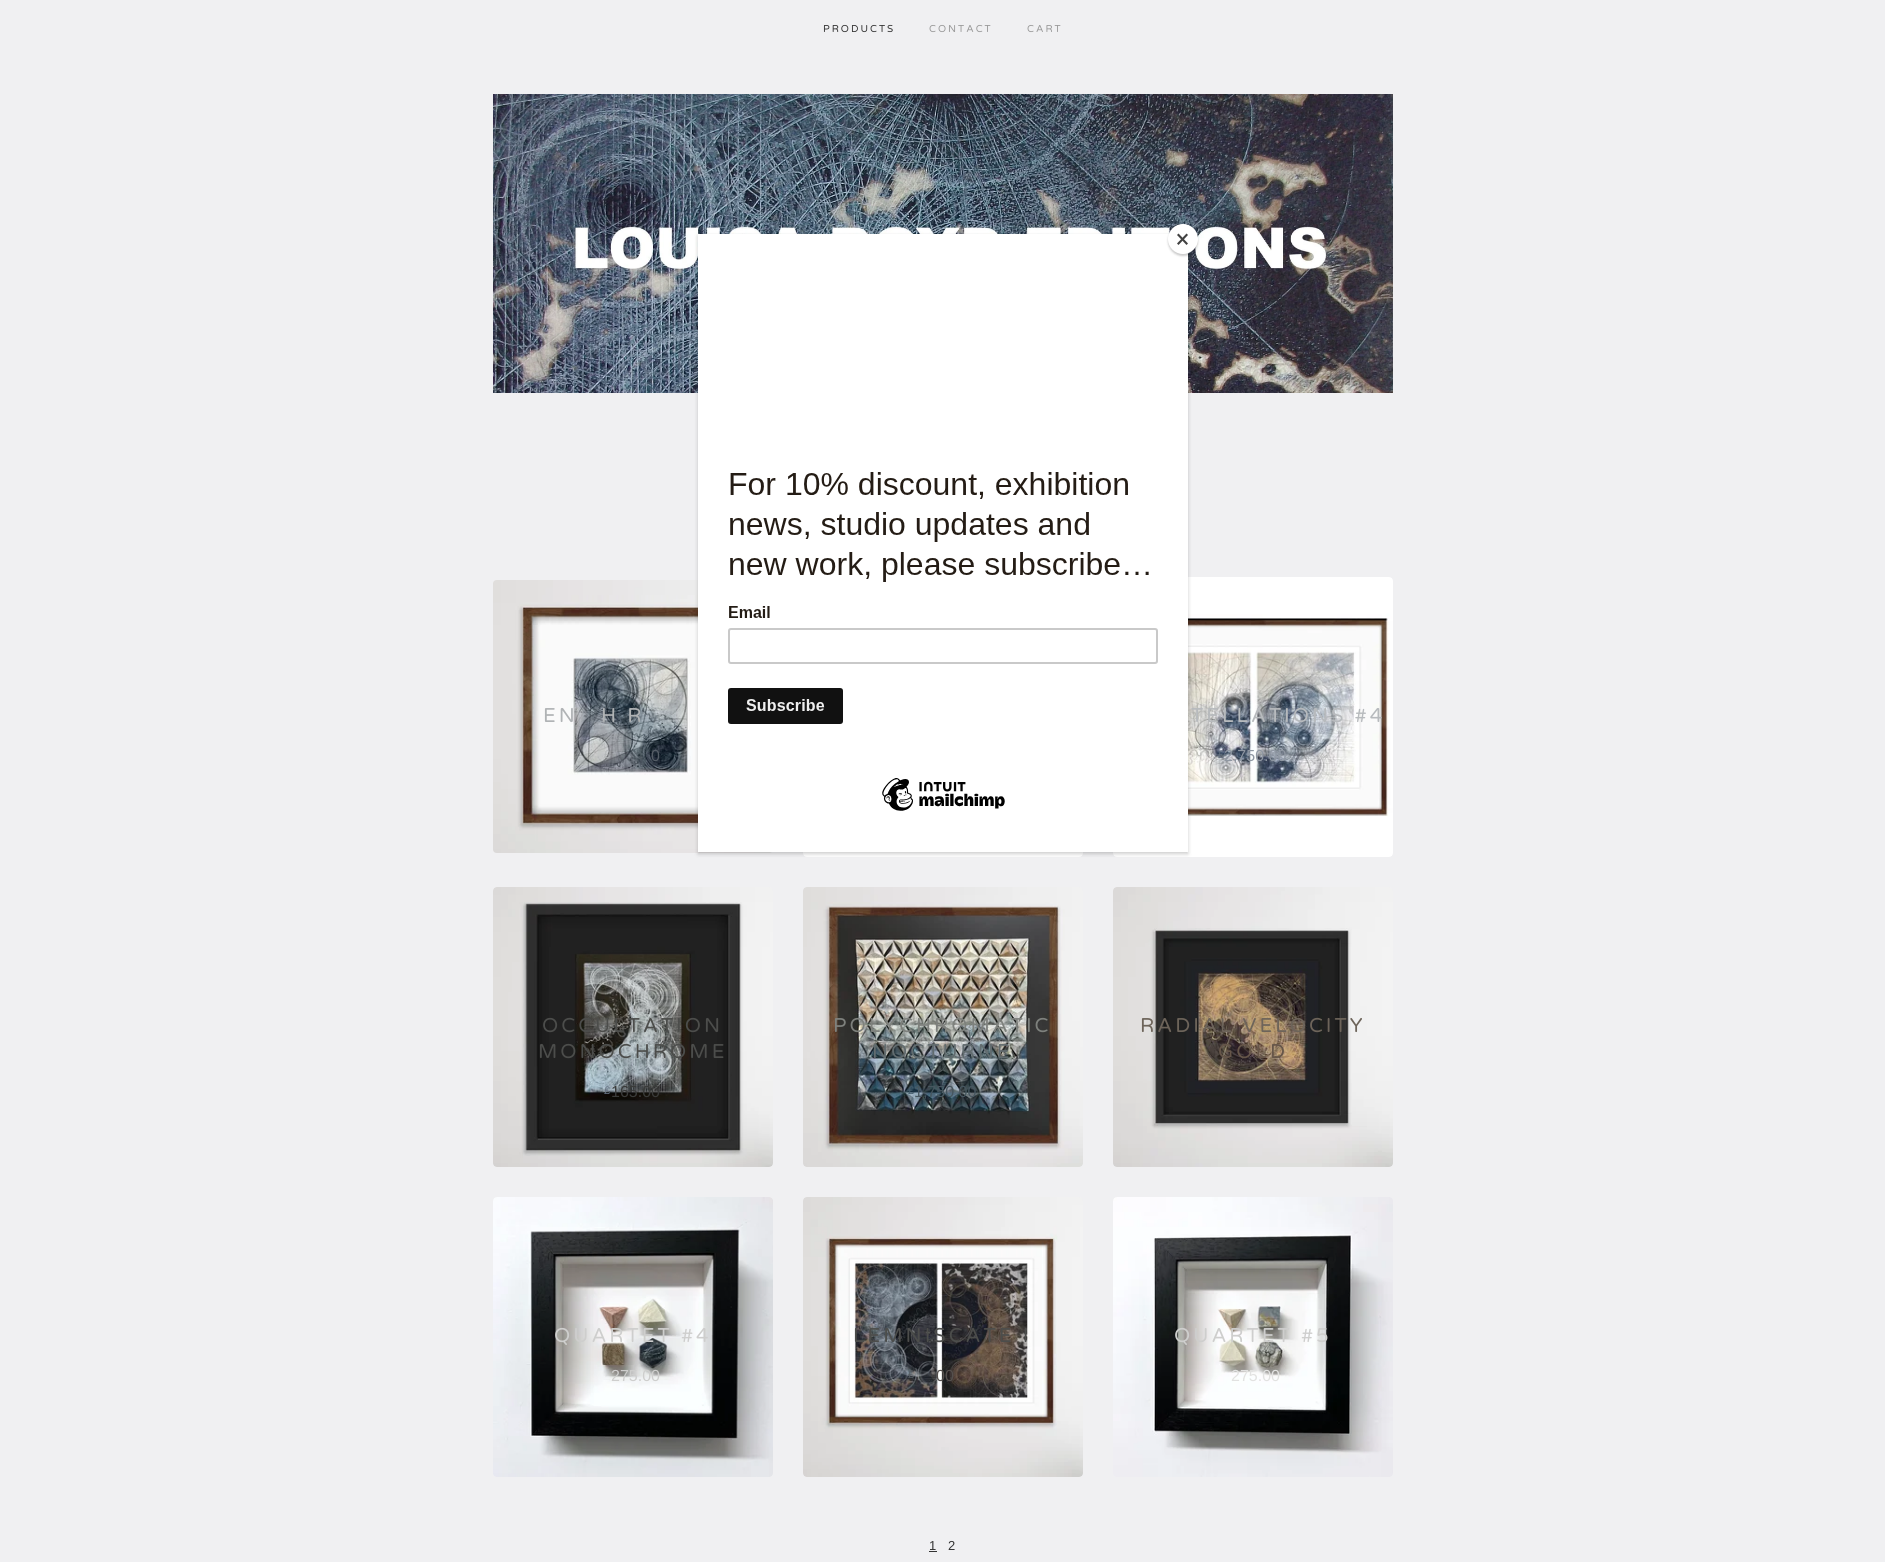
#include <cairo/cairo.h>
#include <math.h>
#include <stddef.h>

static cairo_t *cr;

static void rgb(unsigned color)
{
	cairo_set_source_rgb(cr, (color >> 16) / 255.0, (color >> 8 & 255) / 255.0, (color & 255) / 255.0);
}

static void tracked(double x, double y, const char *s, double letter, double word)
{
	cairo_move_to(cr, x, y);
	while (*s) {
		char ch[5] = {0};
		int n = 0;
		do ch[n++] = *s++; while ((*s & 0xC0) == 0x80);
		cairo_show_text(cr, ch);
		cairo_rel_move_to(cr, letter + word * (*ch == ' '), 0);
	}
}

static void rrect(double x, double y, double w, double h, double r)
{
	cairo_new_sub_path(cr);
	cairo_arc(cr, x + w - r, y + h - r, r, 0, M_PI / 2);
	cairo_arc(cr, x + r, y + h - r, r, M_PI / 2, M_PI);
	cairo_arc(cr, x + r, y + r, r, M_PI, 1.5 * M_PI);
	cairo_arc(cr, x + w - r, y + r, r, 1.5 * M_PI, 2 * M_PI);
	cairo_close_path(cr);
}

static void soft_shadow(double x, double y, double w, double h, double r, double blur, double alpha)
{
	cairo_push_group_with_content(cr, CAIRO_CONTENT_ALPHA);
	cairo_set_operator(cr, CAIRO_OPERATOR_SOURCE);
	for (int i = 15; i >= -15 && fmin(w, h) + blur * i / 3 > 0; i -= 2) {
		double e = blur * i / 6;
		cairo_set_source_rgba(cr, 0, 0, 0, alpha * erfc((i - 1) / 8.5) / 2);
		rrect(x - e, y - e, w + 2 * e, h + 2 * e, fmax(0, fmin(r + e + blur * .6, fmin(w, h) / 2 + e)));
		cairo_fill(cr);
	}
	cairo_pattern_t *soft = cairo_pop_group(cr);
	cairo_mask(cr, soft);
	cairo_pattern_destroy(soft);
}

static void image(const char *path, double x, double y, double w, double h)
{
	cairo_surface_t *image = cairo_image_surface_create_from_png(path);
	cairo_save(cr);
	cairo_set_source_surface(cr, image, x, y);
	cairo_rectangle(cr, x, y, w, h);
	cairo_fill(cr);
	cairo_restore(cr);
	cairo_surface_destroy(image);
}

int main(void) {
	cairo_surface_t *surface = cairo_image_surface_create(CAIRO_FORMAT_RGB24, 1885, 1562);
	cr = cairo_create(surface);
	cairo_font_options_t *options = cairo_font_options_create();
	cairo_font_options_set_hint_metrics(options, CAIRO_HINT_METRICS_OFF);
	cairo_font_options_set_hint_style(options, CAIRO_HINT_STYLE_NONE);
	cairo_set_font_options(cr, options);
	cairo_set_miter_limit(cr, 4);
	rgb(0xf0f0f2);
	cairo_paint(cr);
	image("img/1.png", 493, 94, 900, 299);
	image("img/3.png", 493, 580, 279, 273);
	image("img/4.png", 1113, 577, 280, 280);
	image("img/5.png", 803, 852, 280, 5);
	rgb(0x000000);
	soft_shadow(698, 236, 490, 618, 0, 2, 0.2);
	image("img/2.png", 698, 234, 490, 618);
	soft_shadow(1168, 226, 30, 30, 15, 1, 0.2);
	rgb(0xffffff);
	cairo_arc(cr, 1183, 239, 15, 0, 2 * M_PI);
	cairo_fill(cr);
	rgb(0x414141);
	cairo_new_path(cr);
	cairo_move_to(cr, 1186.5, 233.5);
	cairo_line_to(cr, 1188, 235);
	cairo_line_to(cr, 1178.5, 245);
	cairo_line_to(cr, 1177, 243.5);
	cairo_close_path(cr);
	cairo_fill(cr);
	cairo_new_path(cr);
	cairo_move_to(cr, 1177, 235);
	cairo_line_to(cr, 1178.5, 233.5);
	cairo_line_to(cr, 1188, 243.5);
	cairo_line_to(cr, 1186.5, 245);
	cairo_close_path(cr);
	cairo_fill(cr);
	image("img/6.png", 493, 887, 280, 280);
	image("img/7.png", 803, 887, 280, 280);
	image("img/8.png", 1113, 887, 280, 280);
	image("img/9.png", 493, 1197, 280, 280);
	image("img/10.png", 803, 1197, 280, 280);
	image("img/11.png", 1113, 1197, 280, 280);
	rgb(0x333333);
	cairo_rectangle(cr, 929, 1551, 8, 1);
	cairo_fill(cr);
	cairo_select_font_face(cr, "Varela Round", CAIRO_FONT_SLANT_NORMAL, CAIRO_FONT_WEIGHT_NORMAL);
	cairo_set_font_size(cr, 10);
	tracked(823, 32, "PRODUCTS", 2, 0);
	rgb(0x999999);
	tracked(929, 32, "CONTACT", 2, 0);
	tracked(1027, 32, "CART", 2, 0);
	cairo_set_font_size(cr, 20);
	rgb(0xb0b3b5);
	tracked(543, 722, "EN", 3, 0);
	tracked(601, 722, "H R", 3, 0);
	cairo_select_font_face(cr, "Liberation Sans", CAIRO_FONT_SLANT_NORMAL, CAIRO_FONT_WEIGHT_NORMAL);
	cairo_set_font_size(cr, 11);
	cairo_move_to(cr, 604, 758);
	cairo_show_text(cr, "£");
	cairo_set_font_size(cr, 16);
	rgb(0x555d66);
	cairo_move_to(cr, 651, 761);
	cairo_show_text(cr, "0");
	cairo_select_font_face(cr, "Varela Round", CAIRO_FONT_SLANT_NORMAL, CAIRO_FONT_WEIGHT_NORMAL);
	cairo_set_font_size(cr, 20);
	rgb(0xb7babd);
	tracked(1191, 722, "TELLATIONS #4", 3, 0);
	cairo_select_font_face(cr, "Liberation Sans", CAIRO_FONT_SLANT_NORMAL, CAIRO_FONT_WEIGHT_NORMAL);
	cairo_set_font_size(cr, 11);
	rgb(0x657181);
	cairo_move_to(cr, 1218, 758);
	cairo_show_text(cr, "£");
	cairo_set_font_size(cr, 16);
	rgb(0x8f97a2);
	cairo_move_to(cr, 1224, 761);
	cairo_show_text(cr, "2,750.00");
	cairo_select_font_face(cr, "Varela Round", CAIRO_FONT_SLANT_NORMAL, CAIRO_FONT_WEIGHT_NORMAL);
	cairo_set_font_size(cr, 20);
	rgb(0x4c4d4b);
	tracked(542, 1032, "OCCULTATION", 3, 0);
	tracked(538, 1058, "MONOCHROME", 3, 0);
	cairo_select_font_face(cr, "Liberation Sans", CAIRO_FONT_SLANT_NORMAL, CAIRO_FONT_WEIGHT_NORMAL);
	cairo_set_font_size(cr, 11);
	rgb(0x657181);
	cairo_move_to(cr, 604, 1094);
	cairo_show_text(cr, "£");
	cairo_set_font_size(cr, 16);
	rgb(0x3a3b3a);
	cairo_move_to(cr, 611, 1097);
	cairo_show_text(cr, "165.00");
	cairo_select_font_face(cr, "Varela Round", CAIRO_FONT_SLANT_NORMAL, CAIRO_FONT_WEIGHT_NORMAL);
	cairo_set_font_size(cr, 20);
	rgb(0x7e817d);
	tracked(833, 1032, "POLYCHROMATIC", 3, 0);
	rgb(0x626c6f);
	tracked(872, 1058, "NOCTURNE", 3, 0);
	cairo_select_font_face(cr, "Liberation Sans", CAIRO_FONT_SLANT_NORMAL, CAIRO_FONT_WEIGHT_NORMAL);
	cairo_set_font_size(cr, 11);
	rgb(0x455d6c);
	cairo_move_to(cr, 908, 1094);
	cairo_show_text(cr, "£");
	cairo_set_font_size(cr, 16);
	rgb(0x46565f);
	cairo_move_to(cr, 914, 1097);
	cairo_show_text(cr, "1,750.00");
	cairo_select_font_face(cr, "Varela Round", CAIRO_FONT_SLANT_NORMAL, CAIRO_FONT_WEIGHT_NORMAL);
	cairo_set_font_size(cr, 20);
	rgb(0x6d645a);
	tracked(1140, 1032, "RADIAL VELOCITY", 3, 0);
	rgb(0x665649);
	tracked(1218, 1058, "GOLD", 3, 0);
	rgb(0xcececd);
	tracked(554, 1342, "QUARTET #4", 3, 0);
	cairo_select_font_face(cr, "Liberation Sans", CAIRO_FONT_SLANT_NORMAL, CAIRO_FONT_WEIGHT_NORMAL);
	cairo_set_font_size(cr, 16);
	cairo_move_to(cr, 611, 1381);
	cairo_show_text(cr, "275.00");
	cairo_select_font_face(cr, "Varela Round", CAIRO_FONT_SLANT_NORMAL, CAIRO_FONT_WEIGHT_NORMAL);
	cairo_set_font_size(cr, 20);
	rgb(0x4c4d4b);
	tracked(853, 1342, "LEMNISCATE I", 3, 0);
	cairo_select_font_face(cr, "Liberation Sans", CAIRO_FONT_SLANT_NORMAL, CAIRO_FONT_WEIGHT_NORMAL);
	cairo_set_font_size(cr, 11);
	rgb(0x535a60);
	cairo_move_to(cr, 908, 1378);
	cairo_show_text(cr, "£");
	cairo_set_font_size(cr, 16);
	rgb(0x55504e);
	cairo_move_to(cr, 936, 1381);
	cairo_show_text(cr, "00");
	cairo_select_font_face(cr, "Varela Round", CAIRO_FONT_SLANT_NORMAL, CAIRO_FONT_WEIGHT_NORMAL);
	cairo_set_font_size(cr, 20);
	rgb(0xcececd);
	tracked(1174, 1342, "QUARTET #5", 3, 0);
	cairo_select_font_face(cr, "Liberation Sans", CAIRO_FONT_SLANT_NORMAL, CAIRO_FONT_WEIGHT_NORMAL);
	cairo_set_font_size(cr, 16);
	rgb(0xe2e2e1);
	cairo_move_to(cr, 1231, 1381);
	cairo_show_text(cr, "275.00");
	cairo_set_font_size(cr, 13);
	rgb(0x333333);
	cairo_move_to(cr, 929, 1550);
	cairo_show_text(cr, "1");
	cairo_move_to(cr, 948, 1550);
	cairo_show_text(cr, "2");
	cairo_surface_write_to_png(surface, "page.png");
	cairo_font_options_destroy(options);
	cairo_destroy(cr);
	cairo_surface_destroy(surface);
	return 0;
}
